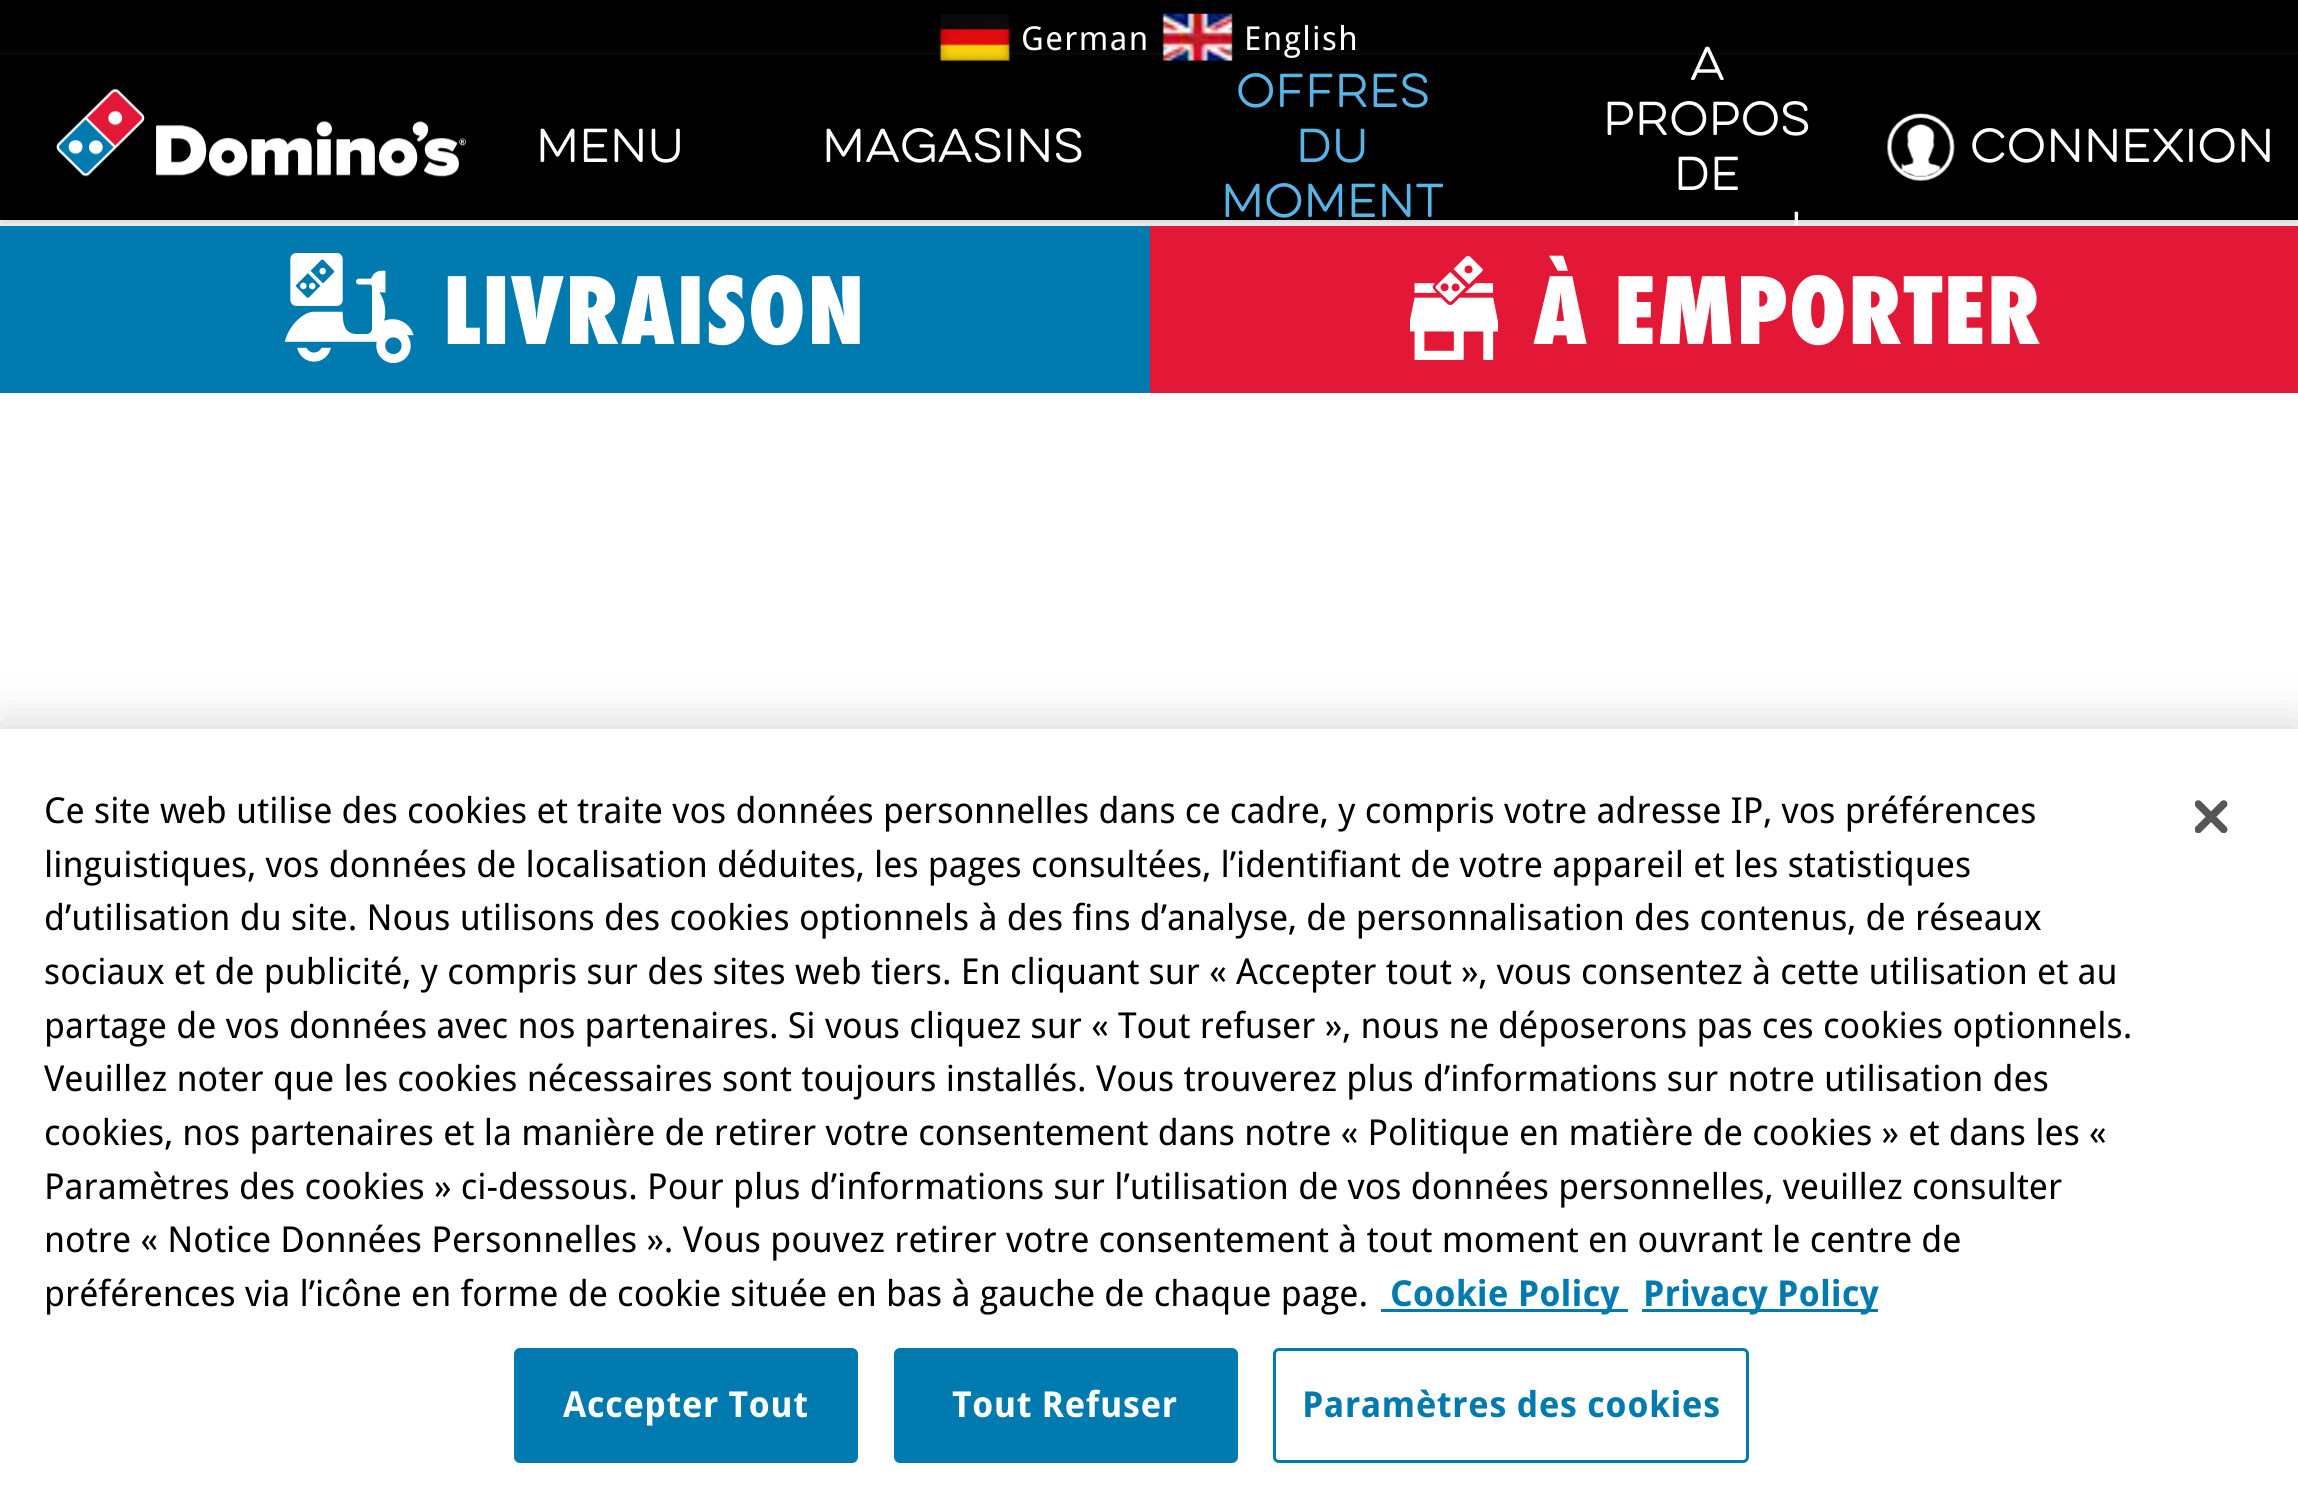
#include <cairo/cairo.h>
#include <math.h>
#include <stddef.h>

typedef struct { double x, y; const char *s; } line_t;
typedef struct { double x, y, w, h; unsigned color; } box_t;
static cairo_t *cr;

static void rgb(unsigned color)
{
	cairo_set_source_rgb(cr, (color >> 16) / 255.0, (color >> 8 & 255) / 255.0, (color & 255) / 255.0);
}

static void tracked(double x, double y, const char *s, double letter, double word)
{
	cairo_move_to(cr, x, y);
	while (*s) {
		char ch[5] = {0};
		int n = 0;
		do ch[n++] = *s++; while ((*s & 0xC0) == 0x80);
		cairo_show_text(cr, ch);
		cairo_rel_move_to(cr, letter + word * (*ch == ' '), 0);
	}
}

static void rrect(double x, double y, double w, double h, double r)
{
	cairo_new_sub_path(cr);
	cairo_arc(cr, x + w - r, y + h - r, r, 0, M_PI / 2);
	cairo_arc(cr, x + r, y + h - r, r, M_PI / 2, M_PI);
	cairo_arc(cr, x + r, y + r, r, M_PI, 1.5 * M_PI);
	cairo_arc(cr, x + w - r, y + r, r, 1.5 * M_PI, 2 * M_PI);
	cairo_close_path(cr);
}

static void soft_shadow(double x, double y, double w, double h, double r, double blur, double alpha)
{
	cairo_push_group_with_content(cr, CAIRO_CONTENT_ALPHA);
	cairo_set_operator(cr, CAIRO_OPERATOR_SOURCE);
	for (int i = 15; i >= -15 && fmin(w, h) + blur * i / 3 > 0; i -= 2) {
		double e = blur * i / 6;
		cairo_set_source_rgba(cr, 0, 0, 0, alpha * erfc((i - 1) / 8.5) / 2);
		rrect(x - e, y - e, w + 2 * e, h + 2 * e, fmax(0, fmin(r + e + blur * .6, fmin(w, h) / 2 + e)));
		cairo_fill(cr);
	}
	cairo_pattern_t *soft = cairo_pop_group(cr);
	cairo_mask(cr, soft);
	cairo_pattern_destroy(soft);
}

static void image(const char *path, double x, double y, double w, double h)
{
	cairo_surface_t *image = cairo_image_surface_create_from_png(path);
	cairo_save(cr);
	cairo_set_source_surface(cr, image, x, y);
	cairo_rectangle(cr, x, y, w, h);
	cairo_fill(cr);
	cairo_restore(cr);
	cairo_surface_destroy(image);
}

int main(void) {
	cairo_surface_t *surface = cairo_image_surface_create(CAIRO_FORMAT_RGB24, 2298, 1505);
	cr = cairo_create(surface);
	cairo_font_options_t *options = cairo_font_options_create();
	cairo_font_options_set_hint_metrics(options, CAIRO_HINT_METRICS_OFF);
	cairo_font_options_set_hint_style(options, CAIRO_HINT_STYLE_NONE);
	cairo_set_font_options(cr, options);
	cairo_set_miter_limit(cr, 4);
	rgb(0xffffff);
	cairo_paint(cr);
	rgb(0x000000);
	cairo_rectangle(cr, 0, 0, 2298, 220);
	cairo_fill(cr);
	cairo_save(cr);
	cairo_set_fill_rule(cr, CAIRO_FILL_RULE_EVEN_ODD);
	cairo_new_path(cr);
	cairo_move_to(cr, 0, 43);
	cairo_line_to(cr, 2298, 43);
	cairo_line_to(cr, 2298, 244);
	cairo_line_to(cr, 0, 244);
	cairo_close_path(cr);
	cairo_move_to(cr, 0, 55);
	cairo_line_to(cr, 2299, 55);
	cairo_line_to(cr, 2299, 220);
	cairo_line_to(cr, 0, 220);
	cairo_close_path(cr);
	cairo_clip(cr);
	rgb(0xb3b3b3);
	soft_shadow(0, 61, 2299, 165, 0, 5.5, 0.5);
	cairo_restore(cr);
	image("img/1.png", 939, 14, 71, 47);
	image("img/2.png", 1162, 13, 71, 48);
	image("img/3.png", 56, 89, 410, 88);
	image("img/4.png", 1887, 113, 68, 68);
	rgb(0x007aaf);
	cairo_rectangle(cr, 0, 226, 1150, 167);
	cairo_fill(cr);
	image("img/5.png", 284, 253, 130, 111);
	rgb(0xe21836);
	cairo_rectangle(cr, 1150, 226, 1148, 167);
	cairo_fill(cr);
	image("img/6.png", 1410, 256, 88, 104);
	rgb(0x000000);
	soft_shadow(0, 729, 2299, 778, 0, 25, 0.2);
	{
		static const box_t items[] = {
			{0, 729, 2298, 776, 0xffffff},
			{1381, 1309, 247, 3, 0x007aaf},
			{1642, 1309, 236, 3, 0x007aaf},
		};
		for (size_t i = 0; i < sizeof items / sizeof *items; i++) {
			rgb(items[i].color);
			cairo_rectangle(cr, items[i].x, items[i].y, items[i].w, items[i].h);
			cairo_fill(cr);
		}
	}
	rrect(515.5, 1349.5, 341, 112, 4.5);
	cairo_fill_preserve(cr);
	cairo_set_line_width(cr, 3);
	cairo_stroke(cr);
	rrect(895.5, 1349.5, 341, 112, 4.5);
	cairo_fill_preserve(cr);
	cairo_stroke(cr);
	rrect(1274.5, 1349.5, 473, 112, 4.5);
	cairo_stroke(cr);
	image("img/7.png", 2195, 800, 33, 33);
	cairo_select_font_face(cr, "Droid Sans", CAIRO_FONT_SLANT_NORMAL, CAIRO_FONT_WEIGHT_NORMAL);
	cairo_set_font_size(cr, 33);
	rgb(0xffffff);
	tracked(1021, 50, "German", 1.4, 0);
	tracked(1244, 50, "English", 1.4, 0);
	cairo_select_font_face(cr, "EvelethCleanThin", CAIRO_FONT_SLANT_NORMAL, CAIRO_FONT_WEIGHT_BOLD);
	cairo_set_font_size(cr, 41.25);
	tracked(536, 162, "MENU", 1.4, 0);
	tracked(822, 162, "MAGASINS", 1.4, 0);
	rgb(0x59b4e5);
	{
		static const line_t items[] = {
			{1236, 107, "OFFRES"},
			{1296, 162, "DU"},
			{1221, 217, "MOMENT"},
		};
		for (size_t i = 0; i < sizeof items / sizeof *items; i++) {
			tracked(items[i].x, items[i].y, items[i].s, 1.4, 0);
		}
	}
	rgb(0xffffff);
	{
		static const line_t items[] = {
			{1690, 80, "A"},
			{1603, 135, "PROPOS"},
			{1674, 190, "DE"},
			{1791, 245, "'"},
			{1970, 162, "CONNEXION"},
		};
		for (size_t i = 0; i < sizeof items / sizeof *items; i++) {
			tracked(items[i].x, items[i].y, items[i].s, 1.4, 0);
		}
	}
	cairo_select_font_face(cr, "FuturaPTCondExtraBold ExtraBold", CAIRO_FONT_SLANT_NORMAL, CAIRO_FONT_WEIGHT_NORMAL);
	cairo_set_font_size(cr, 101.75);
	tracked(443, 344, "LIVRAISON", 1.4, 0);
	tracked(1533, 344, "À EMPORTER", 1.4, 0);
	cairo_select_font_face(cr, "Droid Sans", CAIRO_FONT_SLANT_NORMAL, CAIRO_FONT_WEIGHT_NORMAL);
	cairo_set_font_size(cr, 35.77);
	rgb(0x000000);
	{
		static const line_t items[] = {
			{44, 823, "Ce site web utilise des cookies et traite vos données personnelles dans ce cadre, y compris votre adresse IP, vos préférences"},
			{44, 877, "linguistiques, vos données de localisation déduites, les pages consultées, l’identifiant de votre appareil et les statistiques"},
			{44, 930, "d’utilisation du site. Nous utilisons des cookies optionnels à des fins d’analyse, de personnalisation des contenus, de réseaux"},
			{44, 984, "sociaux et de publicité, y compris sur des sites web tiers. En cliquant sur « Accepter tout », vous consentez à cette utilisation et au"},
			{44, 1038, "partage de vos données avec nos partenaires. Si vous cliquez sur « Tout refuser », nous ne déposerons pas ces cookies optionnels."},
			{44, 1091, "Veuillez noter que les cookies nécessaires sont toujours installés. Vous trouverez plus d’informations sur notre utilisation des"},
			{44, 1145, "cookies, nos partenaires et la manière de retirer votre consentement dans notre « Politique en matière de cookies » et dans les «"},
			{44, 1199, "Paramètres des cookies » ci-dessous. Pour plus d’informations sur l’utilisation de vos données personnelles, veuillez consulter"},
			{44, 1252, "notre « Notice Données Personnelles ». Vous pouvez retirer votre consentement à tout moment en ouvrant le centre de"},
			{44, 1306, "préférences via l’icône en forme de cookie située en bas à gauche de chaque page."},
		};
		for (size_t i = 0; i < sizeof items / sizeof *items; i++) {
			cairo_move_to(cr, items[i].x, items[i].y);
			cairo_show_text(cr, items[i].s);
		}
	}
	cairo_select_font_face(cr, "Droid Sans", CAIRO_FONT_SLANT_NORMAL, CAIRO_FONT_WEIGHT_BOLD);
	rgb(0x007aaf);
	cairo_move_to(cr, 1390, 1306);
	cairo_show_text(cr, "Cookie Policy");
	cairo_move_to(cr, 1643, 1306);
	cairo_show_text(cr, "Privacy Policy");
	rgb(0xffffff);
	tracked(563, 1417, "Accepter Tout", 0.4, 0);
	tracked(952, 1417, "Tout Refuser", 0.4, 0);
	rgb(0x007aaf);
	tracked(1302, 1417, "Paramètres des cookies", 0.4, 0);
	cairo_surface_write_to_png(surface, "page.png");
	cairo_font_options_destroy(options);
	cairo_destroy(cr);
	cairo_surface_destroy(surface);
	return 0;
}
